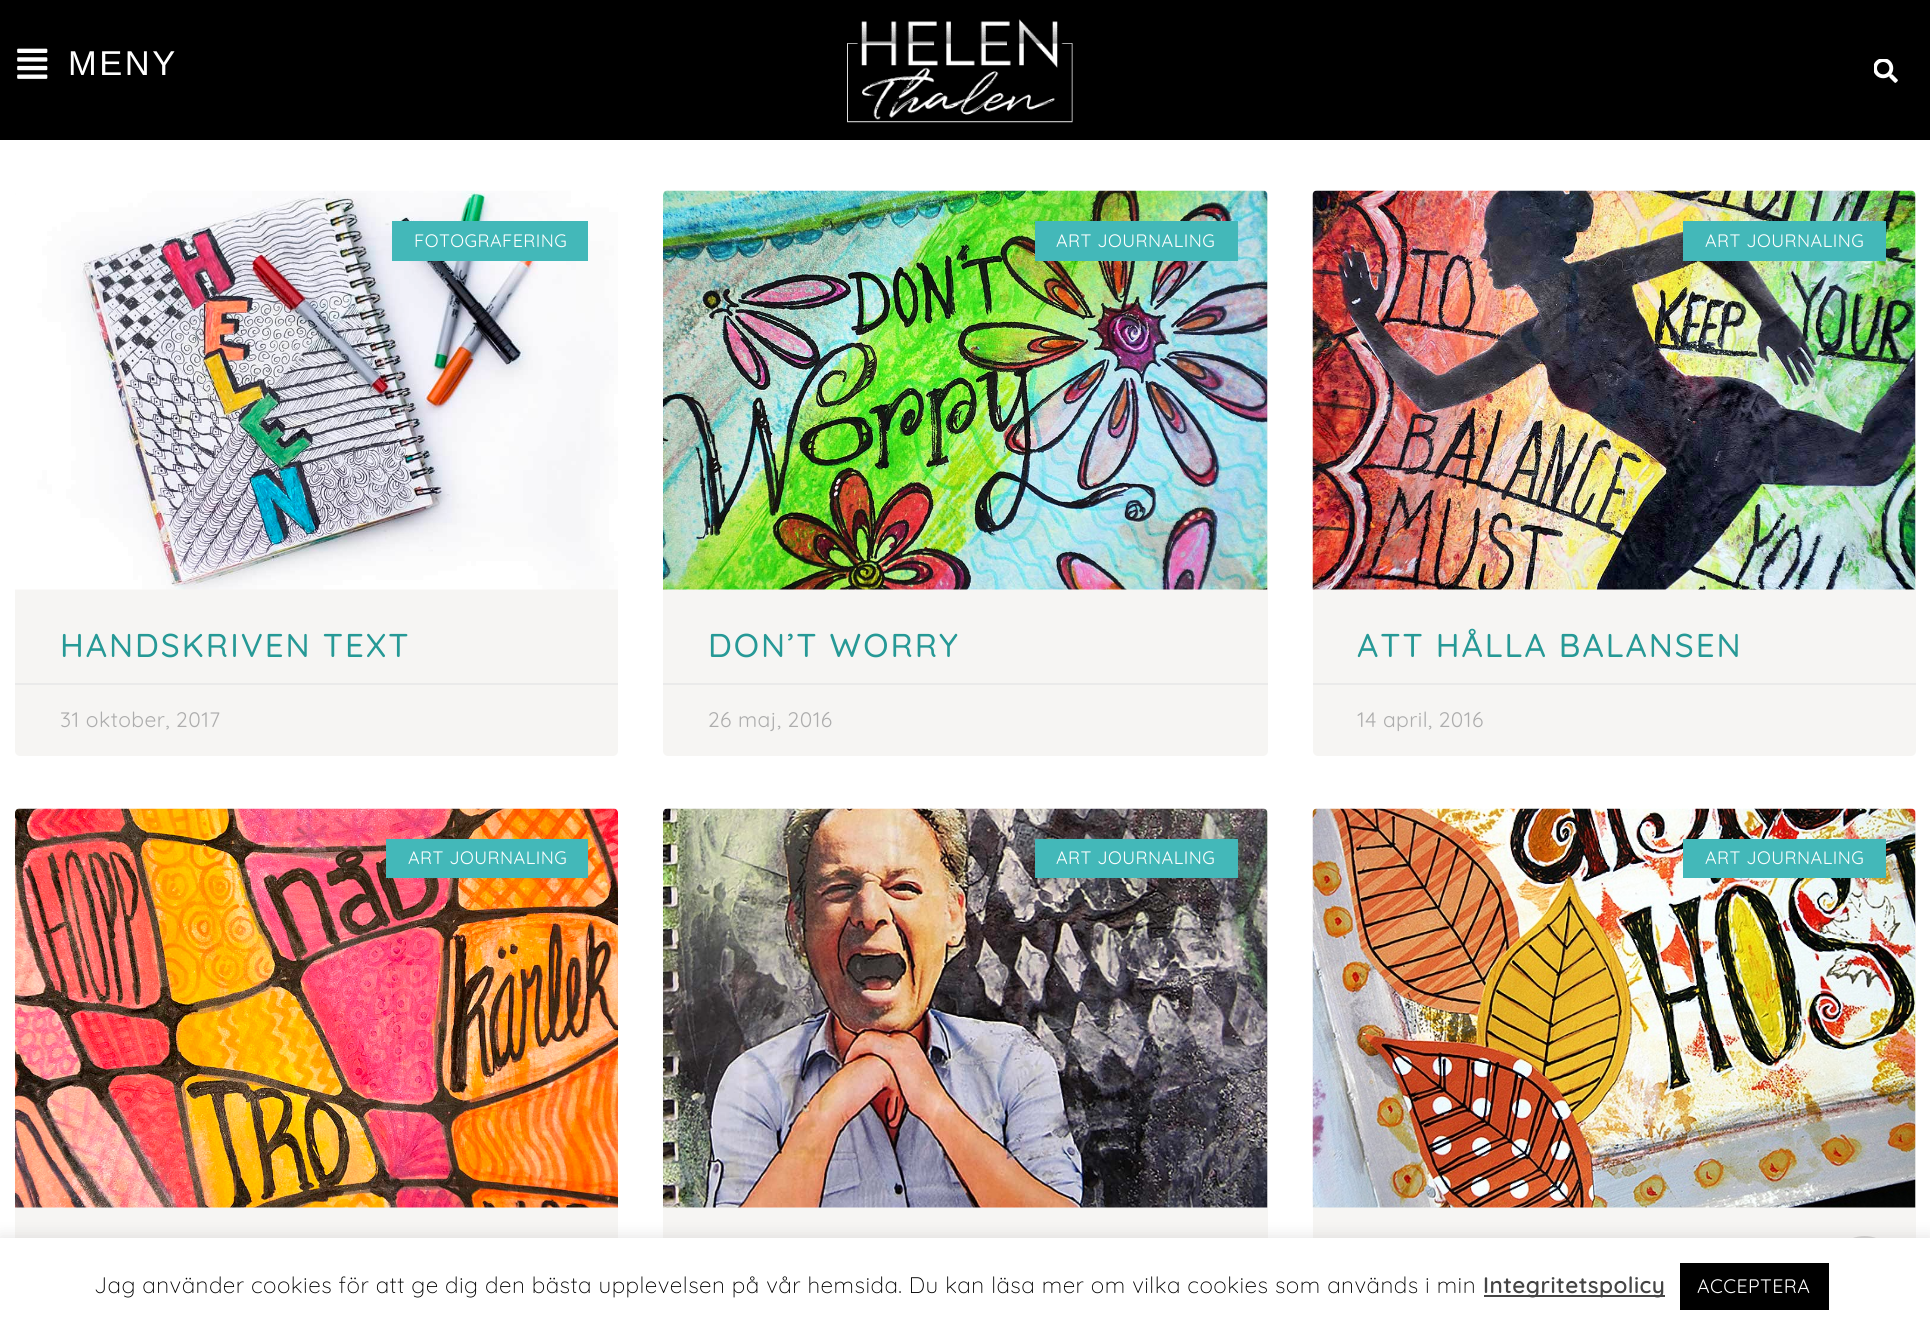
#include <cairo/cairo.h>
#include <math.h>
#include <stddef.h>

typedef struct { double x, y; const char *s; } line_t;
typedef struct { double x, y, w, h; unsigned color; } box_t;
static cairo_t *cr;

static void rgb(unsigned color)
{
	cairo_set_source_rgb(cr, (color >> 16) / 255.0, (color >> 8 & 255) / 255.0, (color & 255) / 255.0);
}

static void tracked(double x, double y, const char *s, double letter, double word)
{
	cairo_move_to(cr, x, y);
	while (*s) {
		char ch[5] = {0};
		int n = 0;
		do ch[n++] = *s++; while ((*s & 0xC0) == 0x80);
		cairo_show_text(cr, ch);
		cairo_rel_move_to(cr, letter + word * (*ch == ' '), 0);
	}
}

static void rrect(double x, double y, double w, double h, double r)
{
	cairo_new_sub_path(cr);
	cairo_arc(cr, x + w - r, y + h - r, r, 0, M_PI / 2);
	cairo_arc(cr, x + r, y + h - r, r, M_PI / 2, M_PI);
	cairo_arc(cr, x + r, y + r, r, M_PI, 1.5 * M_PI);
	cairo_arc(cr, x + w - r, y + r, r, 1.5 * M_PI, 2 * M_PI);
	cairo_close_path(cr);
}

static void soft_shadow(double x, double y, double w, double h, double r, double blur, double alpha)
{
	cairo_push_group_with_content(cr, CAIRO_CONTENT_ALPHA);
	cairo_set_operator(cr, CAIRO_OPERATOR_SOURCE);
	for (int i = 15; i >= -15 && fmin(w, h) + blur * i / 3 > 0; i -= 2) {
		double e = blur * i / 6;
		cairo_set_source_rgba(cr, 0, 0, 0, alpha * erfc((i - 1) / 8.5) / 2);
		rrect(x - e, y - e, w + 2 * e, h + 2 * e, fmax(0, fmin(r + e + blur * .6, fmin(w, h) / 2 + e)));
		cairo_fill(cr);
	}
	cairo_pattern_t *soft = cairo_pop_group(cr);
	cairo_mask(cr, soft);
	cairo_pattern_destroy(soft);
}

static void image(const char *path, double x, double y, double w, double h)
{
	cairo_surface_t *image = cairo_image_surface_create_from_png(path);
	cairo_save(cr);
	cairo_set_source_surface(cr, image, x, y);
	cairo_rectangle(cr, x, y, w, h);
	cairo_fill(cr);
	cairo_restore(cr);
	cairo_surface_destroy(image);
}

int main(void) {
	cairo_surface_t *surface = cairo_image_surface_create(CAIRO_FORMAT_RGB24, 1930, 1335);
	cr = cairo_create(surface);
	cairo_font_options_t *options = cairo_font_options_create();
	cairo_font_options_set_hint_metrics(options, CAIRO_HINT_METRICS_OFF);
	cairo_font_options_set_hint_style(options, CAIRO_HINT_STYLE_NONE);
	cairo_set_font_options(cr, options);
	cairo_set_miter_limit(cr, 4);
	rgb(0xffffff);
	cairo_paint(cr);
	rgb(0x000000);
	cairo_rectangle(cr, 0, 0, 1930, 140);
	cairo_fill(cr);
	image("img/1.png", 17, 48, 31, 31);
	image("img/2.png", 847, 19, 226, 104);
	image("img/3.png", 1874, 59, 24, 24);
	rgb(0xf6f5f3);
	rrect(15, 191, 603, 565, 5);
	cairo_fill(cr);
	image("img/4.png", 15, 190, 603, 400);
	rgb(0x43b8b9);
	cairo_rectangle(cr, 392, 221, 196, 40);
	cairo_fill(cr);
	rgb(0xeaeaea);
	cairo_rectangle(cr, 15, 683, 603, 2);
	cairo_fill(cr);
	rgb(0xf6f5f3);
	rrect(663, 191, 605, 565, 5);
	cairo_fill(cr);
	image("img/5.png", 663, 190, 605, 400);
	rgb(0x43b8b9);
	cairo_rectangle(cr, 1035, 221, 203, 40);
	cairo_fill(cr);
	rgb(0xeaeaea);
	cairo_rectangle(cr, 663, 683, 605, 2);
	cairo_fill(cr);
	rgb(0xf6f5f3);
	rrect(1313, 191, 603, 565, 5);
	cairo_fill(cr);
	image("img/6.png", 1312, 190, 604, 400);
	rgb(0x43b8b9);
	cairo_rectangle(cr, 1683, 221, 203, 40);
	cairo_fill(cr);
	rgb(0xeaeaea);
	cairo_rectangle(cr, 1313, 683, 603, 2);
	cairo_fill(cr);
	rgb(0xf6f5f3);
	rrect(15, 809, 603, 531, 5);
	cairo_fill(cr);
	image("img/7.png", 15, 808, 603, 400);
	rgb(0x43b8b9);
	cairo_rectangle(cr, 386, 839, 202, 39);
	cairo_fill(cr);
	rgb(0xf6f5f3);
	rrect(663, 809, 605, 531, 5);
	cairo_fill(cr);
	image("img/8.png", 663, 808, 605, 400);
	rgb(0x43b8b9);
	cairo_rectangle(cr, 1035, 839, 203, 39);
	cairo_fill(cr);
	rgb(0xf6f5f3);
	rrect(1313, 809, 603, 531, 5);
	cairo_fill(cr);
	image("img/9.png", 1312, 808, 604, 400);
	rgb(0x43b8b9);
	cairo_rectangle(cr, 1683, 839, 203, 39);
	cairo_fill(cr);
	rgb(0xd1d0cf);
	cairo_arc(cr, 1864.5, 1270.5, 34.5, 0, 2 * M_PI);
	cairo_fill(cr);
	rgb(0xacabab);
	soft_shadow(0, 1236, 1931, 98, 0, 7.5, 0.3);
	{
		static const box_t items[] = {
			{0, 1238, 1930, 97, 0xffffff},
			{1484, 1295, 181, 2, 0x444444},
			{1680, 1263, 149, 47, 0x000000},
		};
		for (size_t i = 0; i < sizeof items / sizeof *items; i++) {
			rgb(items[i].color);
			cairo_rectangle(cr, items[i].x, items[i].y, items[i].w, items[i].h);
			cairo_fill(cr);
		}
	}
	cairo_select_font_face(cr, "Liberation Sans", CAIRO_FONT_SLANT_NORMAL, CAIRO_FONT_WEIGHT_NORMAL);
	cairo_set_font_size(cr, 34.5);
	rgb(0xffffff);
	tracked(68, 75, "MENY", 2.5, 0);
	cairo_select_font_face(cr, "Quicksand", CAIRO_FONT_SLANT_NORMAL, CAIRO_FONT_WEIGHT_NORMAL);
	cairo_set_font_size(cr, 18);
	tracked(414, 247, "FOTOGRAFERING", 0.45, 0);
	cairo_select_font_face(cr, "Quicksand Medium", CAIRO_FONT_SLANT_NORMAL, CAIRO_FONT_WEIGHT_NORMAL);
	cairo_set_font_size(cr, 33);
	rgb(0x269996);
	tracked(60, 657, "HANDSKRIVEN TEXT", 2, 0);
	cairo_select_font_face(cr, "Quicksand", CAIRO_FONT_SLANT_NORMAL, CAIRO_FONT_WEIGHT_NORMAL);
	cairo_set_font_size(cr, 21);
	rgb(0xadadad);
	tracked(60, 727, "31 oktober, 2017", 0.45, 0);
	cairo_set_font_size(cr, 18);
	rgb(0xffffff);
	tracked(1056, 247, "ART JOURNALING", 0.45, 0);
	cairo_select_font_face(cr, "Quicksand Medium", CAIRO_FONT_SLANT_NORMAL, CAIRO_FONT_WEIGHT_NORMAL);
	cairo_set_font_size(cr, 33);
	rgb(0x269996);
	tracked(708, 657, "DON’T WORRY", 2, 0);
	cairo_select_font_face(cr, "Quicksand", CAIRO_FONT_SLANT_NORMAL, CAIRO_FONT_WEIGHT_NORMAL);
	cairo_set_font_size(cr, 21);
	rgb(0xadadad);
	tracked(708, 727, "26 maj, 2016", 0.45, 0);
	cairo_set_font_size(cr, 18);
	rgb(0xffffff);
	tracked(1705, 247, "ART JOURNALING", 0.45, 0);
	cairo_select_font_face(cr, "Quicksand Medium", CAIRO_FONT_SLANT_NORMAL, CAIRO_FONT_WEIGHT_NORMAL);
	cairo_set_font_size(cr, 33);
	rgb(0x269996);
	tracked(1357, 657, "ATT HÅLLA BALANSEN", 2, 0);
	cairo_select_font_face(cr, "Quicksand", CAIRO_FONT_SLANT_NORMAL, CAIRO_FONT_WEIGHT_NORMAL);
	cairo_set_font_size(cr, 21);
	rgb(0xadadad);
	tracked(1357, 727, "14 april, 2016", 0.45, 0);
	cairo_set_font_size(cr, 18);
	rgb(0xffffff);
	{
		static const line_t items[] = {
			{408, 864, "ART JOURNALING"},
			{1056, 864, "ART JOURNALING"},
			{1705, 864, "ART JOURNALING"},
		};
		for (size_t i = 0; i < sizeof items / sizeof *items; i++) {
			tracked(items[i].x, items[i].y, items[i].s, 0.45, 0);
		}
	}
	cairo_select_font_face(cr, "Quicksand Light", CAIRO_FONT_SLANT_NORMAL, CAIRO_FONT_WEIGHT_NORMAL);
	cairo_set_font_size(cr, 22.5);
	rgb(0x000000);
	tracked(94, 1293, "Jag använder cookies för att ge dig den bästa upplevelsen på vår hemsida. Du kan läsa mer om vilka cookies som används i min", 0.45, 0);
	cairo_select_font_face(cr, "Quicksand SemiBold", CAIRO_FONT_SLANT_NORMAL, CAIRO_FONT_WEIGHT_NORMAL);
	rgb(0x444444);
	tracked(1483, 1293, "Integritetspolicy", 0.45, 0);
	cairo_select_font_face(cr, "Quicksand", CAIRO_FONT_SLANT_NORMAL, CAIRO_FONT_WEIGHT_NORMAL);
	cairo_set_font_size(cr, 19.5);
	rgb(0xffffff);
	tracked(1697, 1293, "ACCEPTERA", 0.45, 0);
	cairo_surface_write_to_png(surface, "page.png");
	cairo_font_options_destroy(options);
	cairo_destroy(cr);
	cairo_surface_destroy(surface);
	return 0;
}
